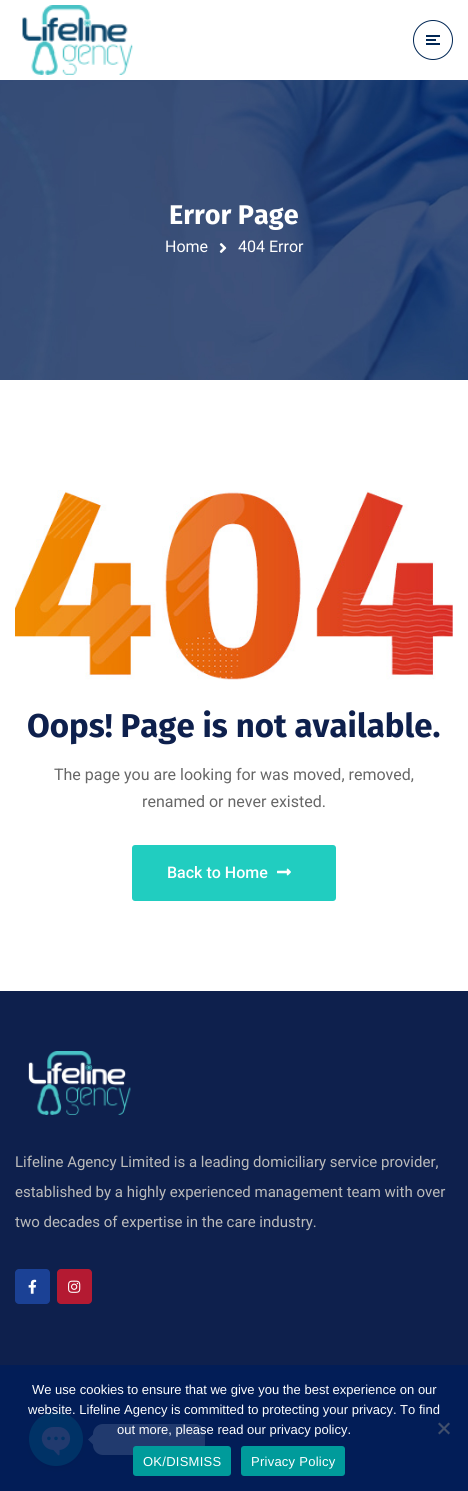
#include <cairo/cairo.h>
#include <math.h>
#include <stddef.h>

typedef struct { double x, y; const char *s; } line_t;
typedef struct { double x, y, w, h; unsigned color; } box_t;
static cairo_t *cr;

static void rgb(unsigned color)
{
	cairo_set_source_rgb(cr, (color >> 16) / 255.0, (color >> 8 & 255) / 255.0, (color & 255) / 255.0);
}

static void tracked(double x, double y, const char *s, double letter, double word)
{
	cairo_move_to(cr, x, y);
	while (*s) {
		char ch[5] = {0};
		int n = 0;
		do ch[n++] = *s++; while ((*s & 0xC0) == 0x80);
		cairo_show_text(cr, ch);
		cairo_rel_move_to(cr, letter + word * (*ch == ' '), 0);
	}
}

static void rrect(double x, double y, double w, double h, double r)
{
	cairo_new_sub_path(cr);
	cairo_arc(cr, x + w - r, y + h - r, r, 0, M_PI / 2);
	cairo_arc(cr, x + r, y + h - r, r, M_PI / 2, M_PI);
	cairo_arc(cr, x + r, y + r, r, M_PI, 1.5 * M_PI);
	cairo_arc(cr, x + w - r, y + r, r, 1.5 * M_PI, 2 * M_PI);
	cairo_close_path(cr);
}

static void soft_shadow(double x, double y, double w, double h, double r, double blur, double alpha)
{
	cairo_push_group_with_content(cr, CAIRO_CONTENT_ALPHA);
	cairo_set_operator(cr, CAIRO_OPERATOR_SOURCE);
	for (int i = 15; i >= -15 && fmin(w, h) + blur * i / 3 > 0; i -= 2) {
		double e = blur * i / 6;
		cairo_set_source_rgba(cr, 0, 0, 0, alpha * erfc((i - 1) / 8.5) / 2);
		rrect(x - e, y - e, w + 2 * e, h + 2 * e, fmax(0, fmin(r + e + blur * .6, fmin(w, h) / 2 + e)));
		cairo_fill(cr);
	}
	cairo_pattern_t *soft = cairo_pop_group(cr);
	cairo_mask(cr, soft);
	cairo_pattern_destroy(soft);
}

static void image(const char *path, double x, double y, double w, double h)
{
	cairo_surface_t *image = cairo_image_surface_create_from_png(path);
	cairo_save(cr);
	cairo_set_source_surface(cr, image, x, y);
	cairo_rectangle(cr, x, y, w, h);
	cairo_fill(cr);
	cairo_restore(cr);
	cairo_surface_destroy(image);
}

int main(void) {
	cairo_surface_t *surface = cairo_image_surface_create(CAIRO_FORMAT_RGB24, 468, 1491);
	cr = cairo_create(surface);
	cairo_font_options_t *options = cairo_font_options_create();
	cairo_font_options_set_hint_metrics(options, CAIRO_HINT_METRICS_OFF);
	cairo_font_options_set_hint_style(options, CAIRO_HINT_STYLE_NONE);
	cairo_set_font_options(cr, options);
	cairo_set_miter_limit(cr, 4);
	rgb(0xffffff);
	cairo_paint(cr);
	image("img/1.png", 22, 5, 111, 70);
	cairo_arc(cr, 433, 40, 19.5, 0, 2 * M_PI);
	rgb(0x002654);
	cairo_set_line_width(cr, 1);
	cairo_stroke(cr);
	{
		static const box_t items[] = {
			{426, 35, 14, 2, 0x002654},
			{426, 39, 10, 2, 0x002654},
			{426, 43, 14, 2, 0x002654},
		};
		for (size_t i = 0; i < sizeof items / sizeof *items; i++) {
			rgb(items[i].color);
			cairo_rectangle(cr, items[i].x, items[i].y, items[i].w, items[i].h);
			cairo_fill(cr);
		}
	}
	image("img/2.png", 0, 80, 468, 300);
	image("img/3.png", 219, 243, 8, 10);
	image("img/4.png", 15, 490, 438, 190);
	rgb(0x21cdc0);
	rrect(132, 845, 204, 56, 3);
	cairo_fill(cr);
	image("img/5.png", 277, 868, 14, 8);
	rgb(0x0e204d);
	cairo_rectangle(cr, 0, 991, 468, 500);
	cairo_fill(cr);
	image("img/6.png", 28, 1051, 103, 64);
	rgb(0x1b4195);
	rrect(15, 1269, 35, 35, 4);
	cairo_fill(cr);
	image("img/7.png", 28, 1279, 9, 15);
	rgb(0xb41a32);
	rrect(57, 1269, 35, 35, 4);
	cairo_fill(cr);
	image("img/8.png", 68, 1280, 13, 13);
	rgb(0x000000);
	soft_shadow(93, 1425, 112, 31, 10, 4, 0.15);
	rgb(0xffffff);
	cairo_new_path(cr);
	cairo_move_to(cr, 93, 1434.5);
	cairo_line_to(cr, 93, 1444.5);
	cairo_line_to(cr, 88, 1439.5);
	cairo_close_path(cr);
	cairo_fill(cr);
	rgb(0x000000);
	soft_shadow(29, 1415, 54, 54, 27, 3, 0.25);
	image("img/9.png", 29, 1412, 54, 54);
	rgb(0xffffff);
	rrect(93, 1424, 112, 31, 10);
	cairo_fill(cr);
	cairo_set_source_rgba(cr, 0, 0.114, 0.349, 0.87);
	cairo_rectangle(cr, 0, 1365, 468, 126);
	cairo_fill(cr);
	rgb(0x414f6c);
	cairo_new_path(cr);
	cairo_move_to(cr, 448.5, 1422.5);
	cairo_line_to(cr, 450, 1424);
	cairo_line_to(cr, 439.5, 1434.5);
	cairo_line_to(cr, 438, 1433);
	cairo_close_path(cr);
	cairo_fill(cr);
	cairo_new_path(cr);
	cairo_move_to(cr, 438, 1424);
	cairo_line_to(cr, 439.5, 1422.5);
	cairo_line_to(cr, 450, 1433);
	cairo_line_to(cr, 448.5, 1434.5);
	cairo_close_path(cr);
	cairo_fill(cr);
	rgb(0x009b9b);
	rrect(133, 1446, 98, 30, 3);
	cairo_fill(cr);
	rrect(241, 1446, 104, 30, 3);
	cairo_fill(cr);
	cairo_select_font_face(cr, "Fira Sans", CAIRO_FONT_SLANT_NORMAL, CAIRO_FONT_WEIGHT_BOLD);
	cairo_set_font_size(cr, 27);
	rgb(0xffffff);
	cairo_move_to(cr, 169, 224);
	cairo_show_text(cr, "Error Page");
	cairo_select_font_face(cr, "Roboto", CAIRO_FONT_SLANT_NORMAL, CAIRO_FONT_WEIGHT_NORMAL);
	cairo_set_font_size(cr, 16);
	cairo_move_to(cr, 165, 252);
	cairo_show_text(cr, "Home");
	cairo_move_to(cr, 238, 252);
	cairo_show_text(cr, "404 Error");
	cairo_select_font_face(cr, "Fira Sans", CAIRO_FONT_SLANT_NORMAL, CAIRO_FONT_WEIGHT_BOLD);
	cairo_set_font_size(cr, 33);
	rgb(0x0e204d);
	cairo_move_to(cr, 27, 737);
	cairo_show_text(cr, "Oops! Page is not available.");
	cairo_select_font_face(cr, "Roboto", CAIRO_FONT_SLANT_NORMAL, CAIRO_FONT_WEIGHT_NORMAL);
	cairo_set_font_size(cr, 16);
	rgb(0x676767);
	cairo_move_to(cr, 54, 780);
	cairo_show_text(cr, "The page you are looking for was moved, removed,");
	cairo_move_to(cr, 142, 807);
	cairo_show_text(cr, "renamed or never existed.");
	cairo_select_font_face(cr, "Roboto Medium", CAIRO_FONT_SLANT_NORMAL, CAIRO_FONT_WEIGHT_NORMAL);
	rgb(0xffffff);
	cairo_move_to(cr, 167, 878);
	cairo_show_text(cr, "Back to Home");
	cairo_select_font_face(cr, "Roboto", CAIRO_FONT_SLANT_NORMAL, CAIRO_FONT_WEIGHT_NORMAL);
	cairo_set_font_size(cr, 15);
	rgb(0xbbbbbb);
	{
		static const line_t items[] = {
			{15, 1167, "Lifeline Agency Limited is a leading domiciliary service provider,"},
			{15, 1197, "established by a highly experienced management team with over"},
			{15, 1227, "two decades of expertise in the care industry."},
		};
		for (size_t i = 0; i < sizeof items / sizeof *items; i++) {
			cairo_move_to(cr, items[i].x, items[i].y);
			cairo_show_text(cr, items[i].s);
		}
	}
	cairo_select_font_face(cr, "Liberation Sans", CAIRO_FONT_SLANT_NORMAL, CAIRO_FONT_WEIGHT_NORMAL);
	cairo_set_font_size(cr, 13);
	rgb(0xffffff);
	{
		static const line_t items[] = {
			{32, 1394, "We use cookies to ensure that we give you the best experience on our"},
			{28, 1414, "website. Lifeline Agency is committed to protecting your privacy. To find"},
			{117, 1434, "out more, please read our privacy policy."},
		};
		for (size_t i = 0; i < sizeof items / sizeof *items; i++) {
			cairo_move_to(cr, items[i].x, items[i].y);
			cairo_show_text(cr, items[i].s);
		}
	}
	tracked(143, 1466, "OK/DISMISS", 0.25, 0);
	tracked(251, 1466, "Privacy Policy", 0.25, 0);
	cairo_surface_write_to_png(surface, "page.png");
	cairo_font_options_destroy(options);
	cairo_destroy(cr);
	cairo_surface_destroy(surface);
	return 0;
}
